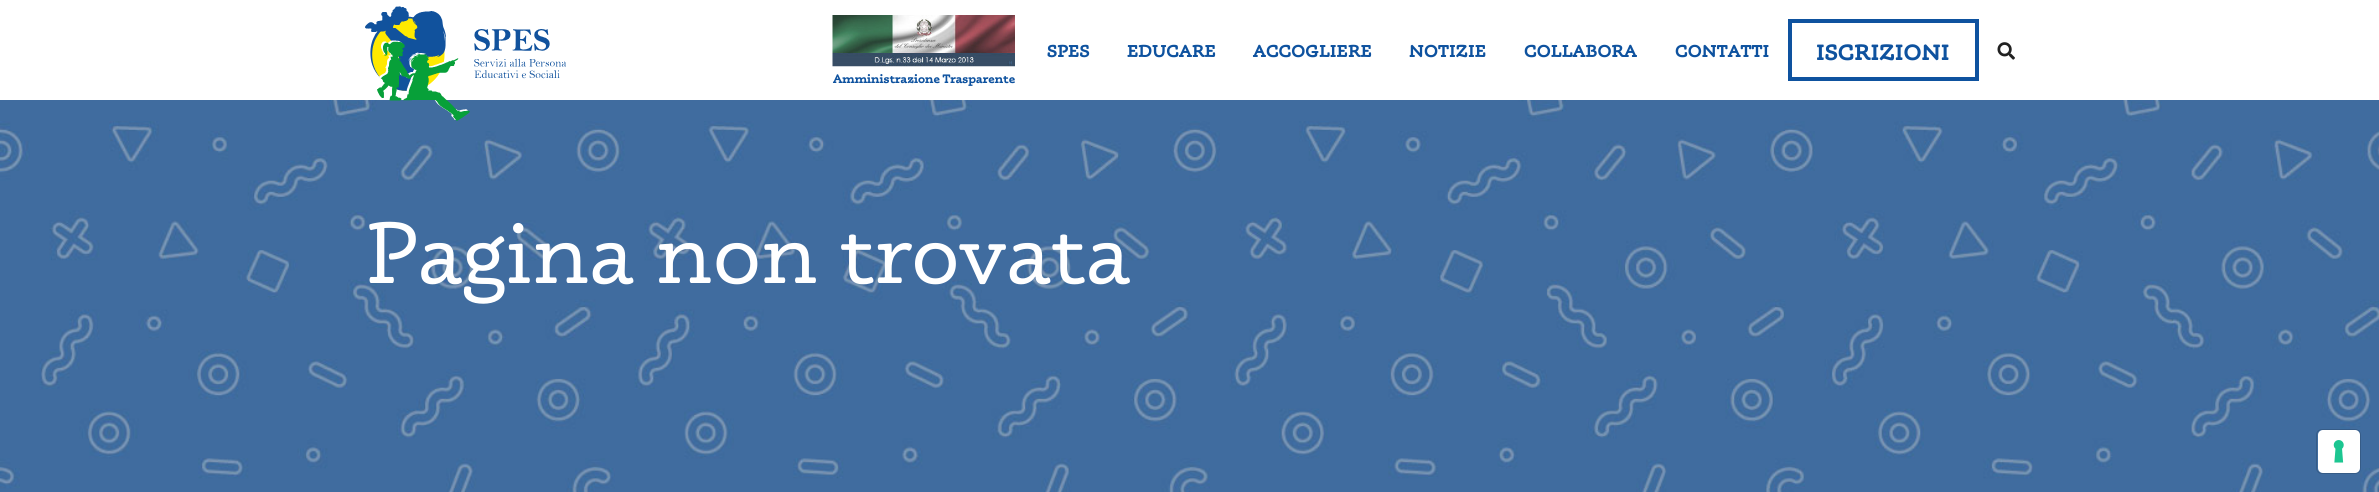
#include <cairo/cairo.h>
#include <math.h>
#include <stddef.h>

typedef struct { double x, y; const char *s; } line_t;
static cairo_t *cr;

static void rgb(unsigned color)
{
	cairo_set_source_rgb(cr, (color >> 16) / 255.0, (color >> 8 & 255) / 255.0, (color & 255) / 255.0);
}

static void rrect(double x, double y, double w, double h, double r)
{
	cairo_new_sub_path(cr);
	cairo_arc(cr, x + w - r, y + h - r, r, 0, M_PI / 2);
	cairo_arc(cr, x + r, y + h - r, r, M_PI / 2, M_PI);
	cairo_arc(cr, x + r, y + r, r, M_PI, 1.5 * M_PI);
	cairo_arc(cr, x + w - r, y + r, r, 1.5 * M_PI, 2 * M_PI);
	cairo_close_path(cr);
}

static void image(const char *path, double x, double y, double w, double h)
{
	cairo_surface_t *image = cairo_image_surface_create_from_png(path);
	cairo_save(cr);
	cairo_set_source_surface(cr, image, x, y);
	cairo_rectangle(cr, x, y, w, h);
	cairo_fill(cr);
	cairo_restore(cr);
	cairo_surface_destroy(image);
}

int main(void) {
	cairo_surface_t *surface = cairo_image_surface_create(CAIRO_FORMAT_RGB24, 2379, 492);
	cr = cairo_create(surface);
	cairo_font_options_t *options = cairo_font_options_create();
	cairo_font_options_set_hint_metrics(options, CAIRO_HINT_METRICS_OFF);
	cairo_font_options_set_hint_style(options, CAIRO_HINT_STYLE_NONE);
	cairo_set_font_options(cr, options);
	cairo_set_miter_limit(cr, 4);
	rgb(0xffffff);
	cairo_paint(cr);
	image("img/4.png", 0, 100, 2379, 392);
	image("img/1.png", 365, 6, 201, 115);
	cairo_rectangle(cr, 1790, 21, 187, 58);
	rgb(0x0e529f);
	cairo_set_line_width(cr, 4);
	cairo_stroke(cr);
	image("img/2.png", 832, 15, 183, 52);
	image("img/3.png", 1997, 42, 18, 18);
	rrect(2316.5, 429.5, 44, 44, 5.5);
	cairo_set_source_rgba(cr, 0, 0, 0, 0.15);
	cairo_set_line_width(cr, 1);
	cairo_stroke(cr);
	rgb(0xffffff);
	rrect(2318, 430, 42, 43, 5);
	cairo_fill(cr);
	image("img/5.png", 2333, 440, 11, 23);
	cairo_select_font_face(cr, "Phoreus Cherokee", CAIRO_FONT_SLANT_NORMAL, CAIRO_FONT_WEIGHT_BOLD);
	cairo_set_font_size(cr, 17.5);
	rgb(0x0e529f);
	{
		static const line_t items[] = {
			{1047, 57, "SPES"},
			{1127, 57, "EDUCARE"},
			{1253, 57, "ACCOGLIERE"},
			{1409, 57, "NOTIZIE"},
			{1524, 57, "COLLABORA"},
			{1675, 57, "CONTATTI"},
		};
		for (size_t i = 0; i < sizeof items / sizeof *items; i++) {
			cairo_move_to(cr, items[i].x, items[i].y);
			cairo_show_text(cr, items[i].s);
		}
	}
	cairo_set_font_size(cr, 22.5);
	cairo_move_to(cr, 1816, 60);
	cairo_show_text(cr, "ISCRIZIONI");
	cairo_set_font_size(cr, 12.5);
	cairo_move_to(cr, 833, 83);
	cairo_show_text(cr, "Amministrazione Trasparente");
	cairo_select_font_face(cr, "Phoreus Cherokee", CAIRO_FONT_SLANT_NORMAL, CAIRO_FONT_WEIGHT_NORMAL);
	cairo_set_font_size(cr, 87.5);
	rgb(0xffffff);
	cairo_move_to(cr, 365, 283);
	cairo_show_text(cr, "Pagina non trovata");
	cairo_surface_write_to_png(surface, "page.png");
	cairo_font_options_destroy(options);
	cairo_destroy(cr);
	cairo_surface_destroy(surface);
	return 0;
}
